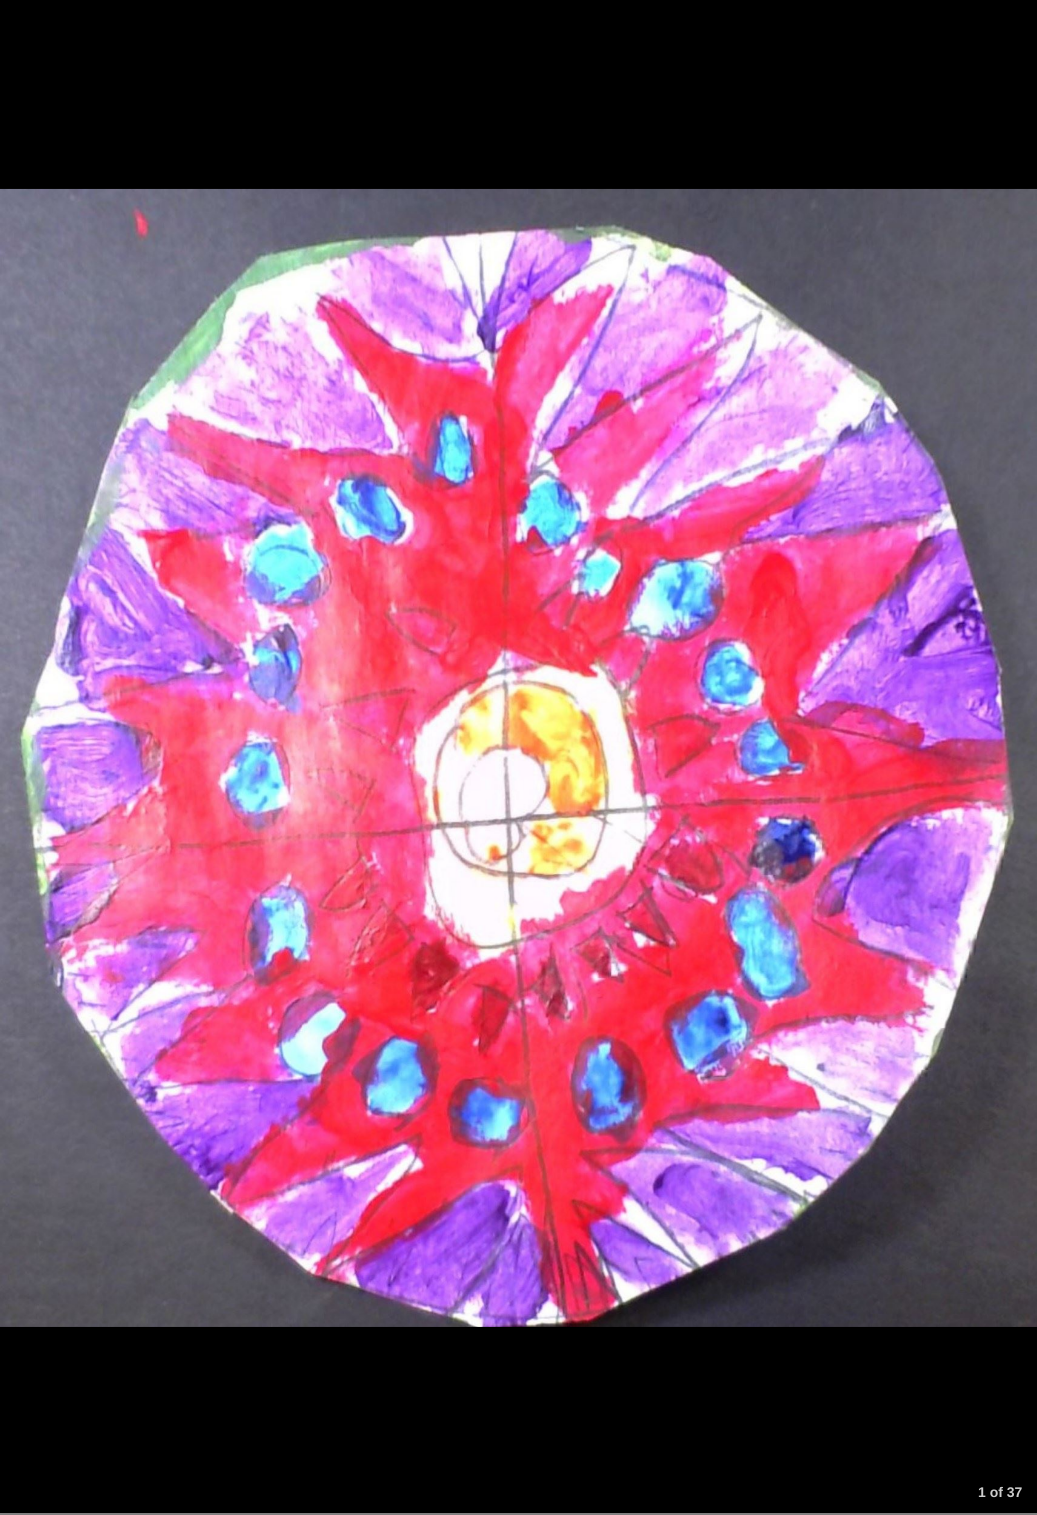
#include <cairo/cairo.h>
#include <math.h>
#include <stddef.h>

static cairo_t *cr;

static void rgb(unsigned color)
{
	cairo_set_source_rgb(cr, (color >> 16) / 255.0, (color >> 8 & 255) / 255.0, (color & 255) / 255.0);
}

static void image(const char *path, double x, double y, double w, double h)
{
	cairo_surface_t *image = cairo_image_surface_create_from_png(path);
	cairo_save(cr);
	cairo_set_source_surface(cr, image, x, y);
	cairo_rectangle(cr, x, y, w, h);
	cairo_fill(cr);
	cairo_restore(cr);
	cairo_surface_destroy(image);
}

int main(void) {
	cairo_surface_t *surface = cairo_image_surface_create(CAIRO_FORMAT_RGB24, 1037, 1515);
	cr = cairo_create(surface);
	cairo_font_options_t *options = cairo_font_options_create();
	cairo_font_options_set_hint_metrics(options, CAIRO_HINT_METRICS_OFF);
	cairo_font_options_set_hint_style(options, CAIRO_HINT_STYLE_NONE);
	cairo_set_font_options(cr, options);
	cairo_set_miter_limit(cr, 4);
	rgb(0x000000);
	cairo_paint(cr);
	image("img/1.png", 0, 188, 1037, 1139);
	rgb(0x808080);
	cairo_rectangle(cr, 0, 1513, 1037, 2);
	cairo_fill(cr);
	cairo_select_font_face(cr, "Liberation Sans", CAIRO_FONT_SLANT_NORMAL, CAIRO_FONT_WEIGHT_BOLD);
	cairo_set_font_size(cr, 14);
	rgb(0xcccccc);
	cairo_move_to(cr, 978, 1497);
	cairo_show_text(cr, "1 of 37");
	cairo_surface_write_to_png(surface, "page.png");
	cairo_font_options_destroy(options);
	cairo_destroy(cr);
	cairo_surface_destroy(surface);
	return 0;
}
